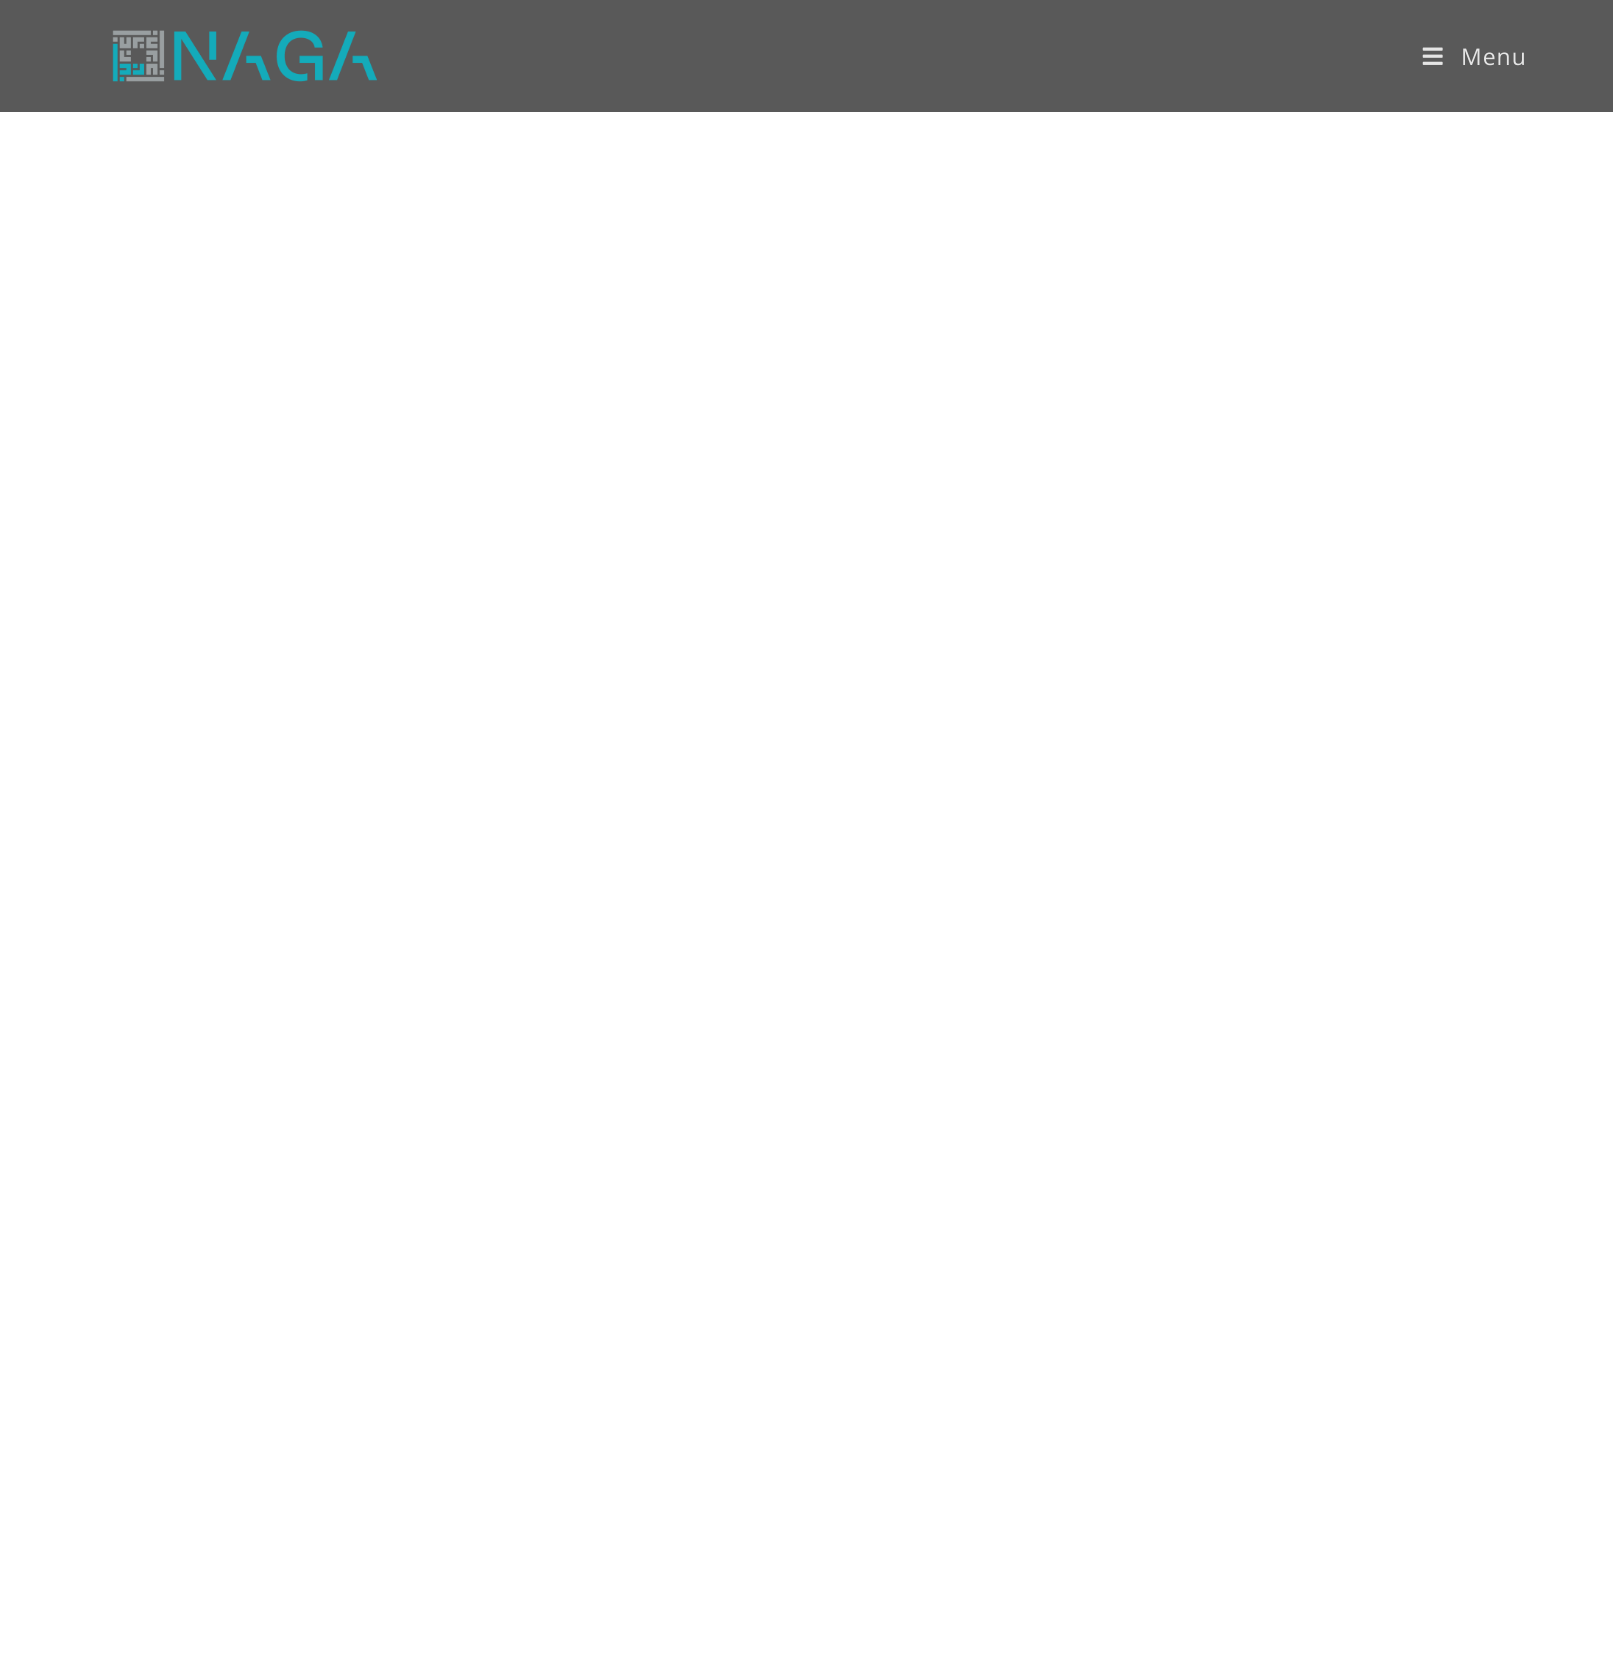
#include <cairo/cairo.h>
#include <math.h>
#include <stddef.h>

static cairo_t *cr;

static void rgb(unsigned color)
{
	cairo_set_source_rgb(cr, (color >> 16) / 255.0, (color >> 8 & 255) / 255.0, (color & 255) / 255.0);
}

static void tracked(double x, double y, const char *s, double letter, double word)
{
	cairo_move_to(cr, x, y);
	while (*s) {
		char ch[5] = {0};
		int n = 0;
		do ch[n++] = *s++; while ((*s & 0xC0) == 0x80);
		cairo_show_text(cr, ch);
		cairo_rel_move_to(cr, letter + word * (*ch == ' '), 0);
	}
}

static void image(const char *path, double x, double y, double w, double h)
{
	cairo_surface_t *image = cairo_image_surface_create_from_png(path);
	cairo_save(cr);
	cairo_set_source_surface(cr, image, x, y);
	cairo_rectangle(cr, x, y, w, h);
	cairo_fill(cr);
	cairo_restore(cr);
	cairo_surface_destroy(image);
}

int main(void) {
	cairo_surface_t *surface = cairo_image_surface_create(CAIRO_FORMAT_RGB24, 1613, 1672);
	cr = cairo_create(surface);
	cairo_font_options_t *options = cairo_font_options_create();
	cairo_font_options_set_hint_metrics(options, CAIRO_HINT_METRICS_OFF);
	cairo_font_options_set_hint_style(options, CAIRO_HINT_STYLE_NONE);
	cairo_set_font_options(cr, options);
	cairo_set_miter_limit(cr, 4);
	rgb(0xffffff);
	cairo_paint(cr);
	rgb(0x595959);
	cairo_rectangle(cr, 0, 0, 1613, 112);
	cairo_fill(cr);
	image("img/1.png", 112, 30, 265, 52);
	image("img/2.png", 1422, 47, 21, 18);
	cairo_select_font_face(cr, "Open Sans", CAIRO_FONT_SLANT_NORMAL, CAIRO_FONT_WEIGHT_NORMAL);
	cairo_set_font_size(cr, 23);
	rgb(0xe5e5e5);
	tracked(1461, 65, "Menu", 1, 0);
	cairo_surface_write_to_png(surface, "page.png");
	cairo_font_options_destroy(options);
	cairo_destroy(cr);
	cairo_surface_destroy(surface);
	return 0;
}
